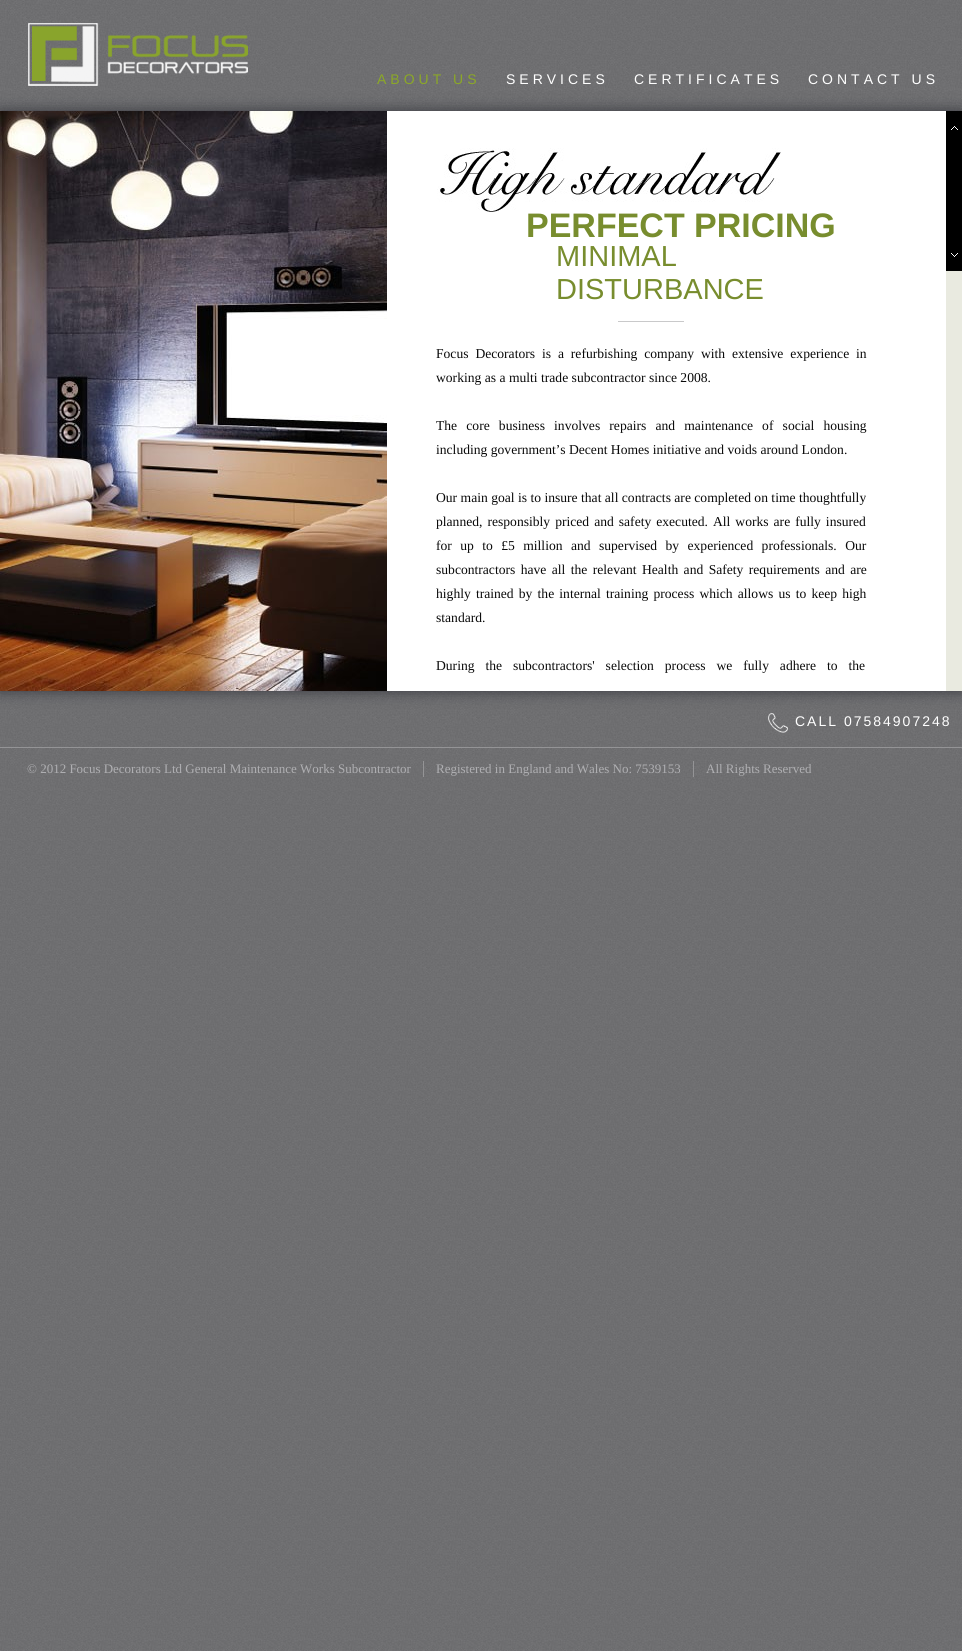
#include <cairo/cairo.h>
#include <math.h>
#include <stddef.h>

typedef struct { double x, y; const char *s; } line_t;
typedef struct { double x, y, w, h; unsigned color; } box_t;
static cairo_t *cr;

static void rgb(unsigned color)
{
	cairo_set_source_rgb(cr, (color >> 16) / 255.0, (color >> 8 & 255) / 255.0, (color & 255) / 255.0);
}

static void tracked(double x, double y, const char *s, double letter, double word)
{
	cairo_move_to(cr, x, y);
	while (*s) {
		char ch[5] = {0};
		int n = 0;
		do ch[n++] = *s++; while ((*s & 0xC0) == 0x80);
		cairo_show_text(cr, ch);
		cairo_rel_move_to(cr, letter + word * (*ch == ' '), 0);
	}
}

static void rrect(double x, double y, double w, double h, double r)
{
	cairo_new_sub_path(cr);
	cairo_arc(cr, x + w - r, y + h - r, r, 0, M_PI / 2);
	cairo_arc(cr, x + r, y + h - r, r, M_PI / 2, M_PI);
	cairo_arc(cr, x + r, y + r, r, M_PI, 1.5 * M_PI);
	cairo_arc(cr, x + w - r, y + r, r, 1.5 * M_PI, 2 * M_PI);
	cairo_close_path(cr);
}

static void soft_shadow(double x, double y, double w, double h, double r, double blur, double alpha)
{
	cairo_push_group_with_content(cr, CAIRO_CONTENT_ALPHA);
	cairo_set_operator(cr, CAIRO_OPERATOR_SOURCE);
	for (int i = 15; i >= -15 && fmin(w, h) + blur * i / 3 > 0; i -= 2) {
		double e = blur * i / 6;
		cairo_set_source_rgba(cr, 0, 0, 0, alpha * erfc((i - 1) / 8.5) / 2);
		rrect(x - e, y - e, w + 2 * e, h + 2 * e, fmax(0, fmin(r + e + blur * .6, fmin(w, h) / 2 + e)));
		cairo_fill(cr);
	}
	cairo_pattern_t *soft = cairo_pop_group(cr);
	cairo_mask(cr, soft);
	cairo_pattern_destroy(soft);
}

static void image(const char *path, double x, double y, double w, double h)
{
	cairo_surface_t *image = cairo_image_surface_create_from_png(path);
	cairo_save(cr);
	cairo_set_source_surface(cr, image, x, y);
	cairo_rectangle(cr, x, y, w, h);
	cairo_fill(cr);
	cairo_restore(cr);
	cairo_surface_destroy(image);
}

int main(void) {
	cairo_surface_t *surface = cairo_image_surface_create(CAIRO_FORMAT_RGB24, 962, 1651);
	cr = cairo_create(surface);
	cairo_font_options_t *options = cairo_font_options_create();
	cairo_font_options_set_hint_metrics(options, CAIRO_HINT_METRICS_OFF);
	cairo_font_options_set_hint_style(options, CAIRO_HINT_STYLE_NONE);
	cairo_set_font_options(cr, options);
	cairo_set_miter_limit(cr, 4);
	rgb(0xffffff);
	cairo_paint(cr);
	image("img/1.png", 0, 0, 962, 1651);
	image("img/2.png", 28, 23, 220, 63);
	rgb(0x35363d);
	soft_shadow(0, 111, 962, 580, 0, 7.5, 1);
	rgb(0xffffff);
	cairo_rectangle(cr, 387, 111, 559, 580);
	cairo_fill(cr);
	image("img/3.png", 0, 111, 387, 580);
	image("img/4.png", 437, 148, 344, 64);
	{
		static const box_t items[] = {
			{618, 321, 66, 1, 0xc9c9ca},
			{946, 271, 16, 420, 0xe9eae0},
			{946, 111, 16, 160, 0x000000},
		};
		for (size_t i = 0; i < sizeof items / sizeof *items; i++) {
			rgb(items[i].color);
			cairo_rectangle(cr, items[i].x, items[i].y, items[i].w, items[i].h);
			cairo_fill(cr);
		}
	}
	image("img/5.png", 951, 126, 7, 131);
	rgb(0x949496);
	cairo_rectangle(cr, 0, 747, 962, 1);
	cairo_fill(cr);
	image("img/6.png", 768, 713, 20, 20);
	cairo_rectangle(cr, 423, 761, 1, 16);
	cairo_fill(cr);
	cairo_rectangle(cr, 693, 761, 1, 16);
	cairo_fill(cr);
	cairo_select_font_face(cr, "Liberation Sans", CAIRO_FONT_SLANT_NORMAL, CAIRO_FONT_WEIGHT_NORMAL);
	cairo_set_font_size(cr, 14);
	rgb(0x8ba827);
	tracked(377, 84, "ABOUT US", 4, 0);
	rgb(0xffffff);
	{
		static const line_t items[] = {
			{506, 84, "SERVICES"},
			{634, 84, "CERTIFICATES"},
			{808, 84, "CONTACT US"},
		};
		for (size_t i = 0; i < sizeof items / sizeof *items; i++) {
			tracked(items[i].x, items[i].y, items[i].s, 4, 0);
		}
	}
	cairo_select_font_face(cr, "Liberation Sans", CAIRO_FONT_SLANT_NORMAL, CAIRO_FONT_WEIGHT_BOLD);
	cairo_set_font_size(cr, 34);
	rgb(0x788d2e);
	cairo_move_to(cr, 526, 237);
	cairo_show_text(cr, "PERFECT PRICING");
	cairo_select_font_face(cr, "Liberation Sans", CAIRO_FONT_SLANT_NORMAL, CAIRO_FONT_WEIGHT_NORMAL);
	cairo_set_font_size(cr, 29);
	cairo_move_to(cr, 556, 266);
	cairo_show_text(cr, "MINIMAL");
	cairo_move_to(cr, 556, 299);
	cairo_show_text(cr, "DISTURBANCE");
	cairo_select_font_face(cr, "Liberation Serif", CAIRO_FONT_SLANT_NORMAL, CAIRO_FONT_WEIGHT_NORMAL);
	cairo_set_font_size(cr, 13.6);
	rgb(0x090909);
	tracked(436, 358, "Focus Decorators is a refurbishing company with extensive experience in", 0, 3.5);
	cairo_move_to(cr, 436, 382);
	cairo_show_text(cr, "working as a multi trade subcontractor since 2008.");
	tracked(436, 430, "The core business involves repairs and maintenance of social housing", 0, 5.75);
	cairo_move_to(cr, 436, 454);
	cairo_show_text(cr, "including government’s Decent Homes initiative and voids around London.");
	cairo_move_to(cr, 436, 502);
	cairo_show_text(cr, "Our main goal is to insure that all contracts are completed on time thoughtfully");
	tracked(436, 526, "planned, responsibly priced and safety executed. All works are fully insured", 0, 1.6);
	tracked(436, 550, "for up to £5 million and supervised by experienced professionals. Our", 0, 5);
	tracked(436, 574, "subcontractors have all the relevant Health and Safety requirements and are", 0, 2);
	tracked(436, 598, "highly trained by the internal training process which allows us to keep high", 0, 1.75);
	cairo_move_to(cr, 436, 622);
	cairo_show_text(cr, "standard.");
	tracked(436, 670, "During the subcontractors' selection process we fully adhere to the", 0, 7.5);
	cairo_select_font_face(cr, "Liberation Sans", CAIRO_FONT_SLANT_NORMAL, CAIRO_FONT_WEIGHT_NORMAL);
	cairo_set_font_size(cr, 14);
	rgb(0xffffff);
	tracked(795, 726, "CALL 07584907248", 2, 0);
	cairo_select_font_face(cr, "Liberation Serif", CAIRO_FONT_SLANT_NORMAL, CAIRO_FONT_WEIGHT_NORMAL);
	cairo_set_font_size(cr, 13);
	rgb(0xafafb2);
	{
		static const line_t items[] = {
			{27, 773, "© 2012 Focus Decorators Ltd General Maintenance Works Subcontractor"},
			{436, 773, "Registered in England and Wales No: 7539153"},
			{706, 773, "All Rights Reserved"},
		};
		for (size_t i = 0; i < sizeof items / sizeof *items; i++) {
			cairo_move_to(cr, items[i].x, items[i].y);
			cairo_show_text(cr, items[i].s);
		}
	}
	cairo_surface_write_to_png(surface, "page.png");
	cairo_font_options_destroy(options);
	cairo_destroy(cr);
	cairo_surface_destroy(surface);
	return 0;
}
